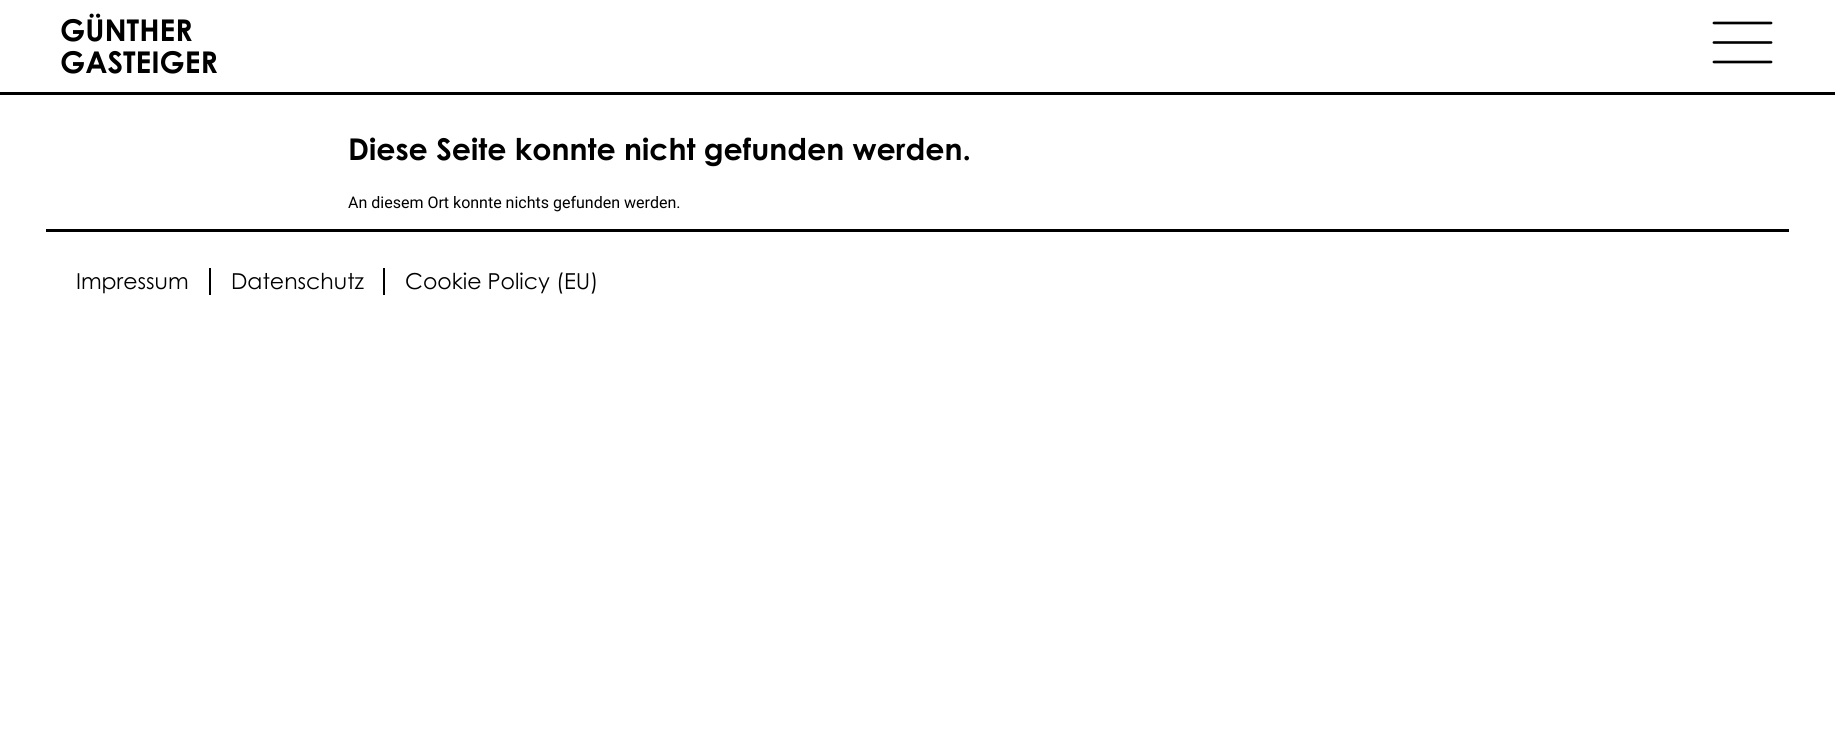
#include <cairo/cairo.h>
#include <math.h>
#include <stddef.h>

typedef struct { double x, y; const char *s; } line_t;
typedef struct { double x, y, w, h; unsigned color; } box_t;
static cairo_t *cr;

static void rgb(unsigned color)
{
	cairo_set_source_rgb(cr, (color >> 16) / 255.0, (color >> 8 & 255) / 255.0, (color & 255) / 255.0);
}

static void image(const char *path, double x, double y, double w, double h)
{
	cairo_surface_t *image = cairo_image_surface_create_from_png(path);
	cairo_save(cr);
	cairo_set_source_surface(cr, image, x, y);
	cairo_rectangle(cr, x, y, w, h);
	cairo_fill(cr);
	cairo_restore(cr);
	cairo_surface_destroy(image);
}

int main(void) {
	cairo_surface_t *surface = cairo_image_surface_create(CAIRO_FORMAT_RGB24, 1835, 732);
	cr = cairo_create(surface);
	cairo_font_options_t *options = cairo_font_options_create();
	cairo_font_options_set_hint_metrics(options, CAIRO_HINT_METRICS_OFF);
	cairo_font_options_set_hint_style(options, CAIRO_HINT_STYLE_NONE);
	cairo_set_font_options(cr, options);
	cairo_set_miter_limit(cr, 4);
	rgb(0xffffff);
	cairo_paint(cr);
	rgb(0x000000);
	cairo_rectangle(cr, 0, 92, 1835, 3);
	cairo_fill(cr);
	image("img/1.png", 1712, 21, 61, 43);
	{
		static const box_t items[] = {
			{46, 229, 1743, 3, 0x000000},
			{209, 268, 2, 27, 0x000000},
			{383, 268, 2, 27, 0x000000},
		};
		for (size_t i = 0; i < sizeof items / sizeof *items; i++) {
			rgb(items[i].color);
			cairo_rectangle(cr, items[i].x, items[i].y, items[i].w, items[i].h);
			cairo_fill(cr);
		}
	}
	cairo_select_font_face(cr, "Century Gothic", CAIRO_FONT_SLANT_NORMAL, CAIRO_FONT_WEIGHT_BOLD);
	cairo_set_font_size(cr, 30);
	{
		static const line_t items[] = {
			{60, 41, "GÜNTHER"},
			{60, 73, "GASTEIGER"},
			{348, 160, "Diese Seite konnte nicht gefunden werden."},
		};
		for (size_t i = 0; i < sizeof items / sizeof *items; i++) {
			cairo_move_to(cr, items[i].x, items[i].y);
			cairo_show_text(cr, items[i].s);
		}
	}
	cairo_select_font_face(cr, "Roboto", CAIRO_FONT_SLANT_NORMAL, CAIRO_FONT_WEIGHT_NORMAL);
	cairo_set_font_size(cr, 16);
	cairo_move_to(cr, 348, 208);
	cairo_show_text(cr, "An diesem Ort konnte nichts gefunden werden.");
	cairo_select_font_face(cr, "Century Gothic", CAIRO_FONT_SLANT_NORMAL, CAIRO_FONT_WEIGHT_NORMAL);
	cairo_set_font_size(cr, 22);
	{
		static const line_t items[] = {
			{76, 289, "Impressum"},
			{231, 289, "Datenschutz"},
			{405, 289, "Cookie Policy (EU)"},
		};
		for (size_t i = 0; i < sizeof items / sizeof *items; i++) {
			cairo_move_to(cr, items[i].x, items[i].y);
			cairo_show_text(cr, items[i].s);
		}
	}
	cairo_surface_write_to_png(surface, "page.png");
	cairo_font_options_destroy(options);
	cairo_destroy(cr);
	cairo_surface_destroy(surface);
	return 0;
}
